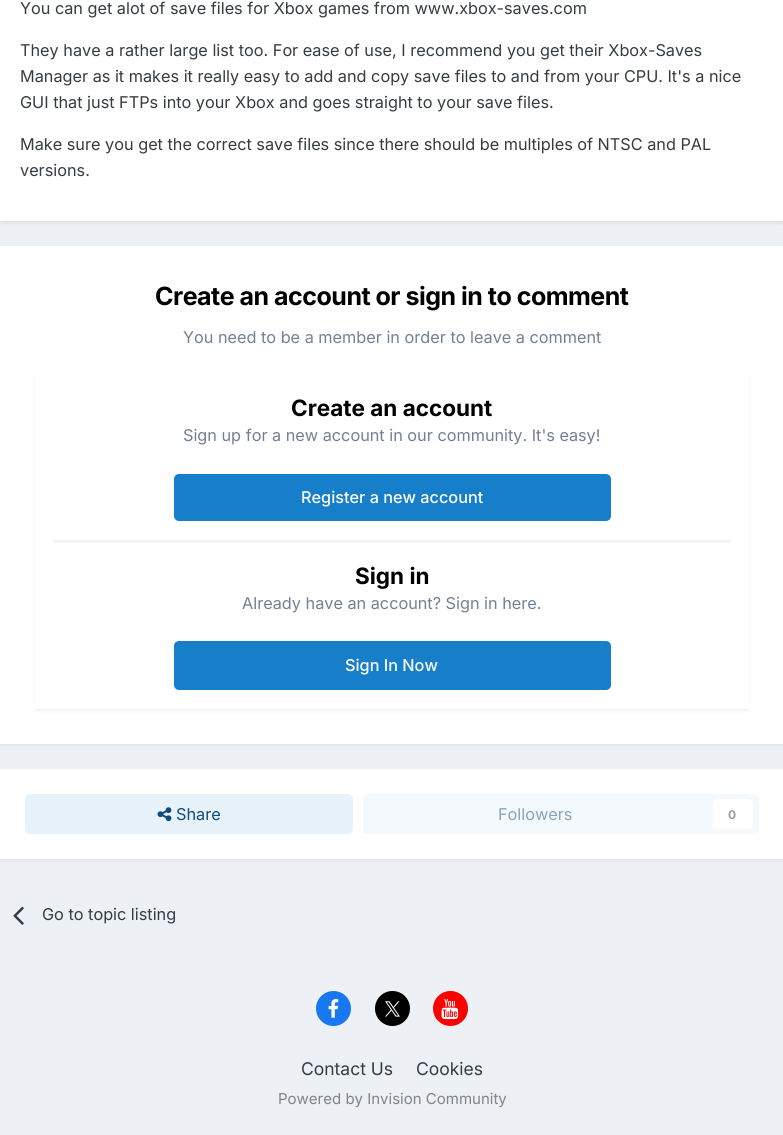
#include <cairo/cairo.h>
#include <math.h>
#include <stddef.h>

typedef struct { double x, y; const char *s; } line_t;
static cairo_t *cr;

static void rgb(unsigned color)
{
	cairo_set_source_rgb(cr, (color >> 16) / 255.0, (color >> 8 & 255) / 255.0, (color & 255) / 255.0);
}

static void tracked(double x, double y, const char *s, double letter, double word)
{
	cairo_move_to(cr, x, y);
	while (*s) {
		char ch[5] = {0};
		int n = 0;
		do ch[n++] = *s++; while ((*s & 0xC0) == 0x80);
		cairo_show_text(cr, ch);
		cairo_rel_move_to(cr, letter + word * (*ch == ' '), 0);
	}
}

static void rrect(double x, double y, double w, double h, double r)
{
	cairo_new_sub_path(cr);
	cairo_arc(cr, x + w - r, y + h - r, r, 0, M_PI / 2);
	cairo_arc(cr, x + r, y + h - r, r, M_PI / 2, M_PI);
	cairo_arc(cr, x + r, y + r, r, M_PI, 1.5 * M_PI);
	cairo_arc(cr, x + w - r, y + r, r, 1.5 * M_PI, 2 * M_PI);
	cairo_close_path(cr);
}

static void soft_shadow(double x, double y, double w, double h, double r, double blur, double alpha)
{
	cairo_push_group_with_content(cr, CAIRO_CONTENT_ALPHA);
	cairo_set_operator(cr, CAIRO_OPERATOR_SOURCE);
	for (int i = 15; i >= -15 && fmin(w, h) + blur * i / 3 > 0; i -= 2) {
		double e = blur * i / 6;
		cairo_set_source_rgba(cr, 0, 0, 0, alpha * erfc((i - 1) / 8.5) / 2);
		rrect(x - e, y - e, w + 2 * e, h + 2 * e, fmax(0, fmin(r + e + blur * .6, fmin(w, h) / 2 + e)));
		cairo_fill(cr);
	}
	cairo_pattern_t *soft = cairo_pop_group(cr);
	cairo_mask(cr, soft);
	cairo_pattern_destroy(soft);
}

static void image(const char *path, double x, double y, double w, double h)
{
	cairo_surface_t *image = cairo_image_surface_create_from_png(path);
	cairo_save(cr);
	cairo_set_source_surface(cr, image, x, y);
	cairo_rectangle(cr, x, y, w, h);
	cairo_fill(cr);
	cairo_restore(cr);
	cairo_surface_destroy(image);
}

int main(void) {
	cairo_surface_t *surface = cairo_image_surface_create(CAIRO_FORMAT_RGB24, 783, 1135);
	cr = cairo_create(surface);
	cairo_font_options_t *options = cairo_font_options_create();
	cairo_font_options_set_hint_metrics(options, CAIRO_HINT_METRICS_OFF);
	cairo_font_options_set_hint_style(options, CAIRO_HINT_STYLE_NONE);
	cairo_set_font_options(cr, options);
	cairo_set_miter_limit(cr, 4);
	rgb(0xedf0f4);
	cairo_paint(cr);
	rgb(0x2d3748);
	soft_shadow(1, -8, 782, 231, 0, 2.5, 0.1);
	rgb(0xffffff);
	cairo_rectangle(cr, 0, 0, 783, 221);
	cairo_fill(cr);
	rgb(0x2d3748);
	soft_shadow(1, 250, 782, 495, 0, 2.5, 0.1);
	rgb(0xffffff);
	cairo_rectangle(cr, 0, 246, 783, 498);
	cairo_fill(cr);
	rgb(0x2d3748);
	soft_shadow(36, 379, 712, 331, 0, 2.5, 0.1);
	rgb(0xffffff);
	cairo_rectangle(cr, 35, 376, 714, 333);
	cairo_fill(cr);
	rgb(0xf2f2f2);
	cairo_rectangle(cr, 54, 540, 676, 3);
	cairo_fill(cr);
	rgb(0x177ec9);
	rrect(174, 474, 437, 47, 5);
	cairo_fill(cr);
	rrect(174, 641, 437, 49, 5);
	cairo_fill(cr);
	rgb(0x2d3748);
	soft_shadow(1, 773, 782, 87, 0, 2.5, 0.1);
	rgb(0xffffff);
	cairo_rectangle(cr, 0, 769, 783, 90);
	cairo_fill(cr);
	rgb(0xe8f2fa);
	rrect(25, 794, 328, 40, 5);
	cairo_fill(cr);
	image("img/1.png", 157, 807, 15, 15);
	rgb(0xf4f9fd);
	rrect(363, 794, 396, 40, 5);
	cairo_fill(cr);
	rgb(0xffffff);
	rrect(713, 799, 40, 30, 5);
	cairo_fill(cr);
	image("img/2.png", 13, 906, 11, 19);
	rgb(0x1778f2);
	cairo_arc(cr, 333.5, 1008.5, 17.5, 0, 2 * M_PI);
	cairo_fill(cr);
	image("img/3.png", 328, 999, 11, 19);
	rgb(0x000000);
	cairo_arc(cr, 392.5, 1008.5, 17.5, 0, 2 * M_PI);
	cairo_fill(cr);
	image("img/4.png", 385, 1001, 15, 16);
	rgb(0xff0000);
	cairo_arc(cr, 450.5, 1008.5, 17.5, 0, 2 * M_PI);
	cairo_fill(cr);
	image("img/5.png", 441, 999, 18, 21);
	cairo_select_font_face(cr, "Inter", CAIRO_FONT_SLANT_NORMAL, CAIRO_FONT_WEIGHT_NORMAL);
	cairo_set_font_size(cr, 16.25);
	rgb(0x353c41);
	{
		static const line_t items[] = {
			{20, 14, "You can get alot of save files for Xbox games from www.xbox-saves.com"},
			{20, 56, "They have a rather large list too. For ease of use, I recommend you get their Xbox-Saves"},
			{20, 82, "Manager as it makes it really easy to add and copy save files to and from your CPU. It's a nice"},
			{20, 108, "GUI that just FTPs into your Xbox and goes straight to your save files."},
			{20, 150, "Make sure you get the correct save files since there should be multiples of NTSC and PAL"},
			{20, 176, "versions."},
		};
		for (size_t i = 0; i < sizeof items / sizeof *items; i++) {
			cairo_move_to(cr, items[i].x, items[i].y);
			cairo_show_text(cr, items[i].s);
		}
	}
	cairo_select_font_face(cr, "Inter", CAIRO_FONT_SLANT_NORMAL, CAIRO_FONT_WEIGHT_BOLD);
	cairo_set_font_size(cr, 25);
	rgb(0x000000);
	tracked(155, 305, "Create an account or sign in to comment", -0.5, 0);
	cairo_select_font_face(cr, "Inter", CAIRO_FONT_SLANT_NORMAL, CAIRO_FONT_WEIGHT_NORMAL);
	cairo_set_font_size(cr, 16.25);
	rgb(0x718096);
	cairo_move_to(cr, 183, 343);
	cairo_show_text(cr, "You need to be a member in order to leave a comment");
	cairo_select_font_face(cr, "Inter", CAIRO_FONT_SLANT_NORMAL, CAIRO_FONT_WEIGHT_BOLD);
	cairo_set_font_size(cr, 22.5);
	rgb(0x000000);
	cairo_move_to(cr, 291, 416);
	cairo_show_text(cr, "Create an account");
	cairo_select_font_face(cr, "Inter", CAIRO_FONT_SLANT_NORMAL, CAIRO_FONT_WEIGHT_NORMAL);
	cairo_set_font_size(cr, 16.25);
	rgb(0x718096);
	cairo_move_to(cr, 183, 441);
	cairo_show_text(cr, "Sign up for a new account in our community. It's easy!");
	cairo_select_font_face(cr, "Inter Medium", CAIRO_FONT_SLANT_NORMAL, CAIRO_FONT_WEIGHT_NORMAL);
	rgb(0xffffff);
	cairo_move_to(cr, 301, 503);
	cairo_show_text(cr, "Register a new account");
	cairo_select_font_face(cr, "Inter", CAIRO_FONT_SLANT_NORMAL, CAIRO_FONT_WEIGHT_BOLD);
	cairo_set_font_size(cr, 22.5);
	rgb(0x000000);
	cairo_move_to(cr, 355, 584);
	cairo_show_text(cr, "Sign in");
	cairo_select_font_face(cr, "Inter", CAIRO_FONT_SLANT_NORMAL, CAIRO_FONT_WEIGHT_NORMAL);
	cairo_set_font_size(cr, 16.25);
	rgb(0x718096);
	cairo_move_to(cr, 242, 609);
	cairo_show_text(cr, "Already have an account? Sign in here.");
	cairo_select_font_face(cr, "Inter Medium", CAIRO_FONT_SLANT_NORMAL, CAIRO_FONT_WEIGHT_NORMAL);
	rgb(0xffffff);
	cairo_move_to(cr, 345, 671);
	cairo_show_text(cr, "Sign In Now");
	cairo_select_font_face(cr, "Inter", CAIRO_FONT_SLANT_NORMAL, CAIRO_FONT_WEIGHT_NORMAL);
	rgb(0x0e4c79);
	cairo_move_to(cr, 176, 820);
	cairo_show_text(cr, "Share");
	rgb(0x87a6bc);
	cairo_move_to(cr, 498, 820);
	cairo_show_text(cr, "Followers");
	cairo_select_font_face(cr, "Inter", CAIRO_FONT_SLANT_NORMAL, CAIRO_FONT_WEIGHT_BOLD);
	cairo_set_font_size(cr, 12);
	rgb(0x9a9ea0);
	cairo_move_to(cr, 728, 819);
	cairo_show_text(cr, "0");
	cairo_select_font_face(cr, "Inter", CAIRO_FONT_SLANT_NORMAL, CAIRO_FONT_WEIGHT_NORMAL);
	cairo_set_font_size(cr, 16.25);
	rgb(0x353c41);
	cairo_move_to(cr, 42, 920);
	cairo_show_text(cr, "Go to topic listing");
	cairo_set_font_size(cr, 17.5);
	cairo_move_to(cr, 301, 1075);
	cairo_show_text(cr, "Contact Us");
	cairo_move_to(cr, 416, 1075);
	cairo_show_text(cr, "Cookies");
	cairo_set_font_size(cr, 15);
	rgb(0x7f8489);
	cairo_move_to(cr, 278, 1104);
	cairo_show_text(cr, "Powered by Invision Community");
	cairo_surface_write_to_png(surface, "page.png");
	cairo_font_options_destroy(options);
	cairo_destroy(cr);
	cairo_surface_destroy(surface);
	return 0;
}
